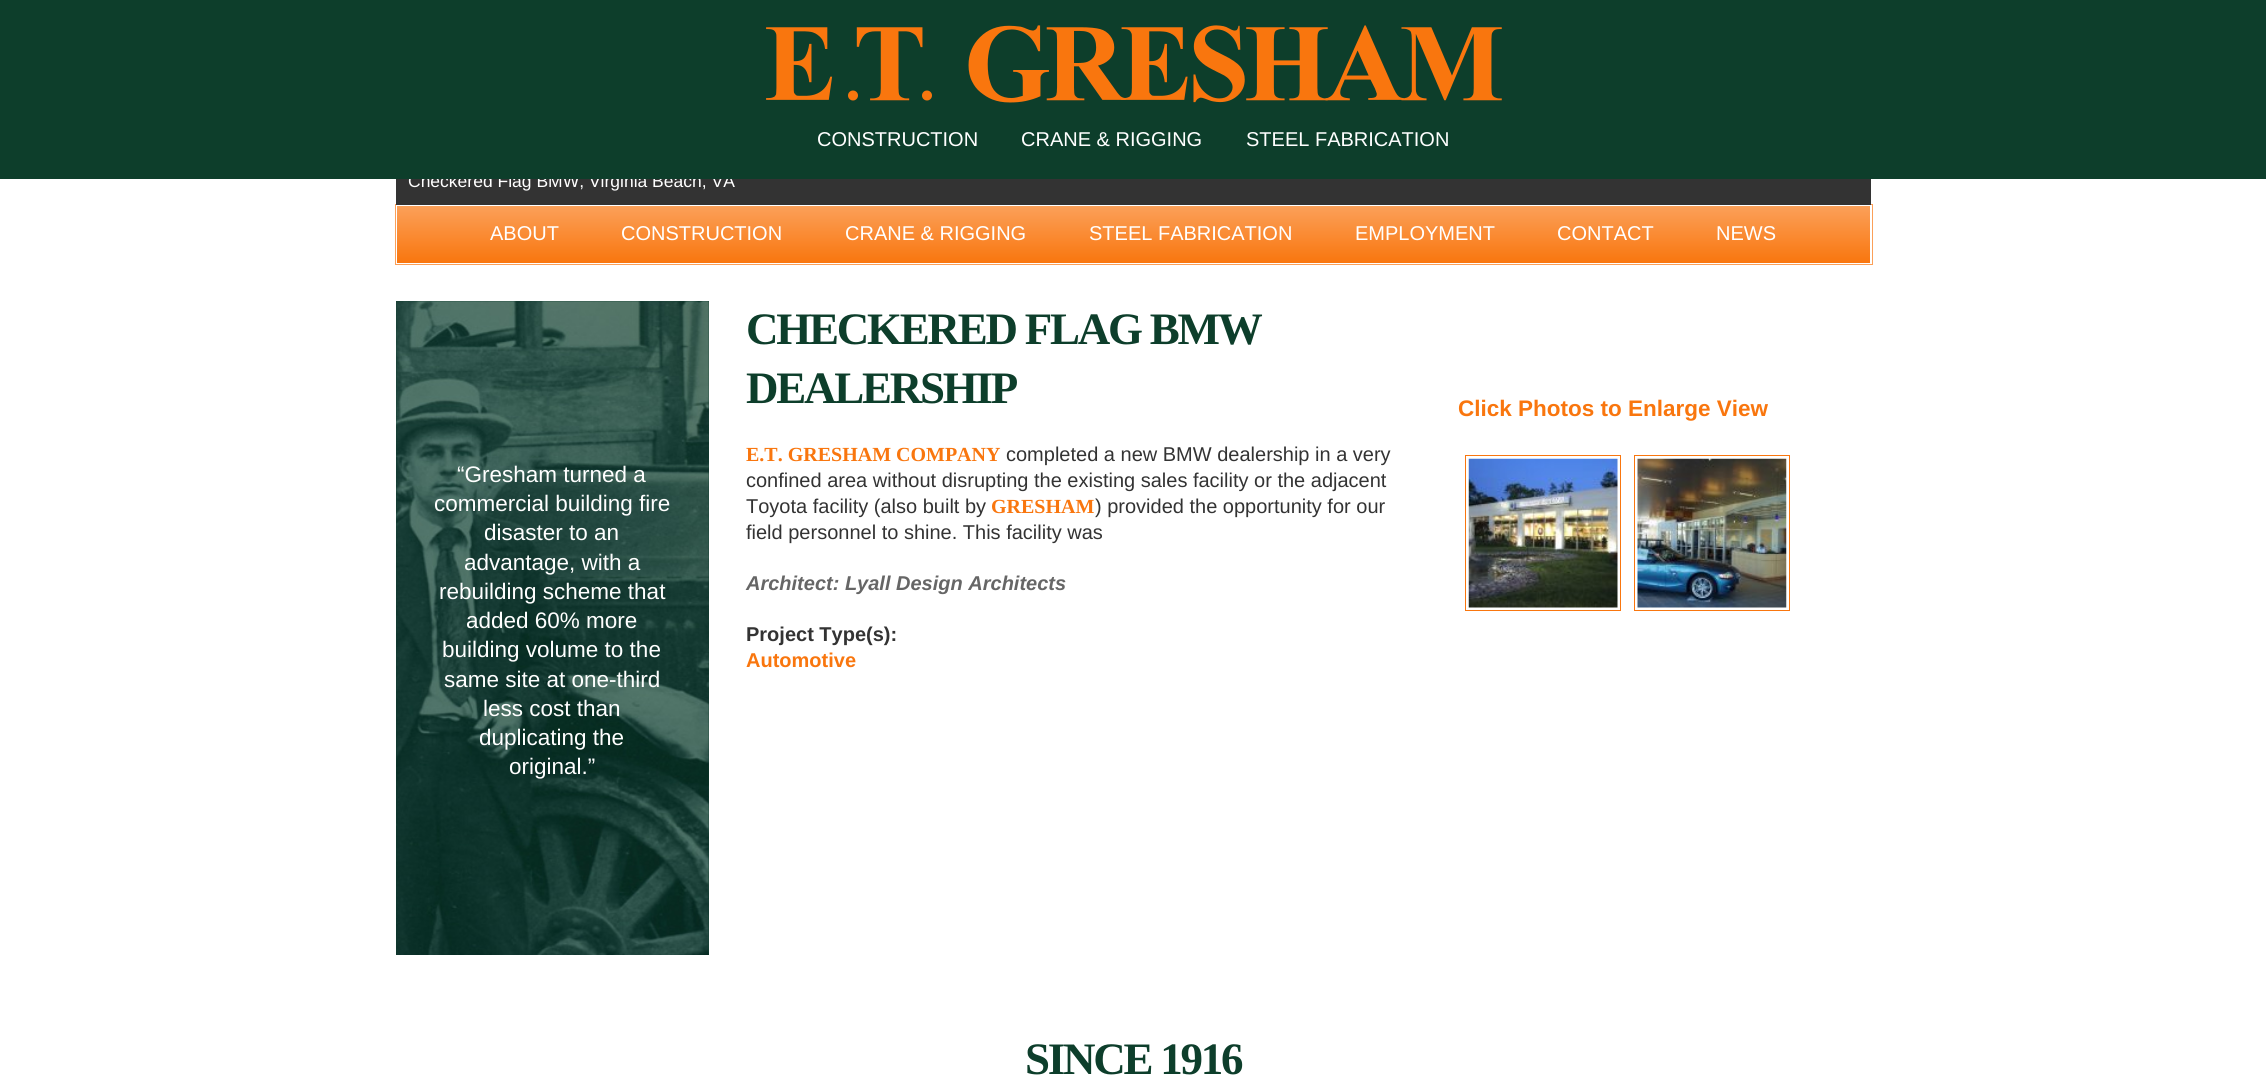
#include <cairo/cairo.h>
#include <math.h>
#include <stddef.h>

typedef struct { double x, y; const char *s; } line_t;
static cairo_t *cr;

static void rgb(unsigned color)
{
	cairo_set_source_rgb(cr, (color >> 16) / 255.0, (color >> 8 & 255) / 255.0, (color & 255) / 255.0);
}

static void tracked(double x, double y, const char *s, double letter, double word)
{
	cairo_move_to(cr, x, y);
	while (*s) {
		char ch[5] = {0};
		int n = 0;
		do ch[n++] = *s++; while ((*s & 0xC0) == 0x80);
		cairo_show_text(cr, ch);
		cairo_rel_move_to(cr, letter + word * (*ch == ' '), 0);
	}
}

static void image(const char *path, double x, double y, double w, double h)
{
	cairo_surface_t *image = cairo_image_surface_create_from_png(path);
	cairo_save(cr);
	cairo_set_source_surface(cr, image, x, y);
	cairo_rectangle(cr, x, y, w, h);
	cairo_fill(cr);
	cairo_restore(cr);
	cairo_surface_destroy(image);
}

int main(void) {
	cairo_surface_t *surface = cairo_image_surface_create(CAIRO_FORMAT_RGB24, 2266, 1078);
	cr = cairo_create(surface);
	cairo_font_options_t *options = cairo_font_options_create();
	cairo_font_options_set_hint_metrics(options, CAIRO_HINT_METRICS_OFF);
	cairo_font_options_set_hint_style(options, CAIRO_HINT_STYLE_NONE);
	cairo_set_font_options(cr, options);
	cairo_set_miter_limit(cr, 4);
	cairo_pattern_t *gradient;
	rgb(0xffffff);
	cairo_paint(cr);
	rgb(0x0d3e2b);
	cairo_rectangle(cr, 0, 0, 2266, 179);
	cairo_fill(cr);
	image("img/1.png", 766, 25, 736, 78);
	gradient = cairo_pattern_create_linear(1134, 206, 1134, 263);
	cairo_pattern_add_color_stop_rgba(gradient, 0, 0.984, 0.627, 0.349, 1);
	cairo_pattern_add_color_stop_rgba(gradient, 1, 0.976, 0.463, 0.055, 1);
	cairo_set_source(cr, gradient);
	cairo_pattern_destroy(gradient);
	cairo_rectangle(cr, 397, 206, 1473, 57);
	cairo_fill(cr);
	cairo_rectangle(cr, 395.5, 204.5, 1477, 60);
	rgb(0xfba059);
	cairo_set_line_width(cr, 1);
	cairo_stroke(cr);
	rgb(0x333333);
	cairo_rectangle(cr, 396, 179, 1475, 26);
	cairo_fill(cr);
	cairo_rectangle(cr, 1465.5, 455.5, 155, 155);
	rgb(0xf9760e);
	cairo_stroke(cr);
	image("img/2.png", 1468, 458, 150, 150);
	cairo_rectangle(cr, 1634.5, 455.5, 155, 155);
	cairo_stroke(cr);
	image("img/3.png", 1637, 458, 150, 150);
	rgb(0x0d3e2b);
	cairo_rectangle(cr, 396, 301, 313, 654);
	cairo_fill(cr);
	image("img/4.png", 396, 301, 313, 654);
	cairo_select_font_face(cr, "Liberation Sans", CAIRO_FONT_SLANT_NORMAL, CAIRO_FONT_WEIGHT_NORMAL);
	cairo_set_font_size(cr, 20);
	rgb(0xffffff);
	{
		static const line_t items[] = {
			{817, 146, "CONSTRUCTION"},
			{1021, 146, "CRANE & RIGGING"},
			{1246, 146, "STEEL FABRICATION"},
		};
		for (size_t i = 0; i < sizeof items / sizeof *items; i++) {
			cairo_move_to(cr, items[i].x, items[i].y);
			cairo_show_text(cr, items[i].s);
		}
	}
	cairo_save(cr);
	cairo_rectangle(cr, 396, 179, 1475, 26);
	cairo_clip(cr);
	cairo_set_font_size(cr, 17.5);
	cairo_move_to(cr, 408, 187);
	cairo_show_text(cr, "Checkered Flag BMW, Virginia Beach, VA");
	cairo_restore(cr);
	{
		static const line_t items[] = {
			{490, 240, "ABOUT"},
			{621, 240, "CONSTRUCTION"},
			{845, 240, "CRANE & RIGGING"},
			{1089, 240, "STEEL FABRICATION"},
			{1355, 240, "EMPLOYMENT"},
			{1557, 240, "CONTACT"},
			{1716, 240, "NEWS"},
		};
		for (size_t i = 0; i < sizeof items / sizeof *items; i++) {
			cairo_move_to(cr, items[i].x, items[i].y);
			cairo_show_text(cr, items[i].s);
		}
	}
	cairo_select_font_face(cr, "Liberation Serif", CAIRO_FONT_SLANT_NORMAL, CAIRO_FONT_WEIGHT_BOLD);
	cairo_set_font_size(cr, 45);
	rgb(0x0d3e2b);
	tracked(746, 344, "CHECKERED FLAG BMW", -2.25, 0);
	tracked(746, 403, "DEALERSHIP", -2.25, 0);
	cairo_set_font_size(cr, 20);
	rgb(0xf9760e);
	cairo_move_to(cr, 746, 461);
	cairo_show_text(cr, "E.T. GRESHAM COMPANY");
	cairo_select_font_face(cr, "Liberation Sans", CAIRO_FONT_SLANT_NORMAL, CAIRO_FONT_WEIGHT_NORMAL);
	rgb(0x333333);
	{
		static const line_t items[] = {
			{1006, 461, "completed a new BMW dealership in a very"},
			{746, 487, "confined area without disrupting the existing sales facility or the adjacent"},
			{746, 513, "Toyota facility (also built by"},
		};
		for (size_t i = 0; i < sizeof items / sizeof *items; i++) {
			cairo_move_to(cr, items[i].x, items[i].y);
			cairo_show_text(cr, items[i].s);
		}
	}
	cairo_select_font_face(cr, "Liberation Serif", CAIRO_FONT_SLANT_NORMAL, CAIRO_FONT_WEIGHT_BOLD);
	rgb(0xf9760e);
	cairo_move_to(cr, 991, 513);
	cairo_show_text(cr, "GRESHAM");
	cairo_select_font_face(cr, "Liberation Sans", CAIRO_FONT_SLANT_NORMAL, CAIRO_FONT_WEIGHT_NORMAL);
	rgb(0x333333);
	cairo_move_to(cr, 1095, 513);
	cairo_show_text(cr, ") provided the opportunity for our");
	cairo_move_to(cr, 746, 539);
	cairo_show_text(cr, "field personnel to shine. This facility was");
	cairo_select_font_face(cr, "Liberation Sans", CAIRO_FONT_SLANT_ITALIC, CAIRO_FONT_WEIGHT_BOLD);
	rgb(0x666666);
	cairo_move_to(cr, 746, 590);
	cairo_show_text(cr, "Architect: Lyall Design Architects");
	cairo_select_font_face(cr, "Liberation Sans", CAIRO_FONT_SLANT_NORMAL, CAIRO_FONT_WEIGHT_BOLD);
	rgb(0x333333);
	cairo_move_to(cr, 746, 641);
	cairo_show_text(cr, "Project Type(s):");
	rgb(0xf9760e);
	cairo_move_to(cr, 746, 667);
	cairo_show_text(cr, "Automotive");
	cairo_set_font_size(cr, 22.5);
	cairo_move_to(cr, 1458, 416);
	cairo_show_text(cr, "Click Photos to Enlarge View");
	cairo_select_font_face(cr, "Liberation Sans", CAIRO_FONT_SLANT_NORMAL, CAIRO_FONT_WEIGHT_NORMAL);
	rgb(0xffffff);
	{
		static const line_t items[] = {
			{457, 482, "“Gresham turned a"},
			{434, 511, "commercial building fire"},
			{484, 540, "disaster to an"},
			{464, 570, "advantage, with a"},
			{439, 599, "rebuilding scheme that"},
			{466, 628, "added 60% more"},
			{442, 657, "building volume to the"},
			{444, 687, "same site at one-third"},
			{483, 716, "less cost than"},
			{479, 745, "duplicating the"},
			{509, 774, "original.”"},
		};
		for (size_t i = 0; i < sizeof items / sizeof *items; i++) {
			cairo_move_to(cr, items[i].x, items[i].y);
			cairo_show_text(cr, items[i].s);
		}
	}
	cairo_select_font_face(cr, "Liberation Serif", CAIRO_FONT_SLANT_NORMAL, CAIRO_FONT_WEIGHT_BOLD);
	cairo_set_font_size(cr, 45);
	rgb(0x0d3e2b);
	tracked(1025, 1074, "SINCE 1916", -2.25, 0);
	cairo_surface_write_to_png(surface, "page.png");
	cairo_font_options_destroy(options);
	cairo_destroy(cr);
	cairo_surface_destroy(surface);
	return 0;
}
